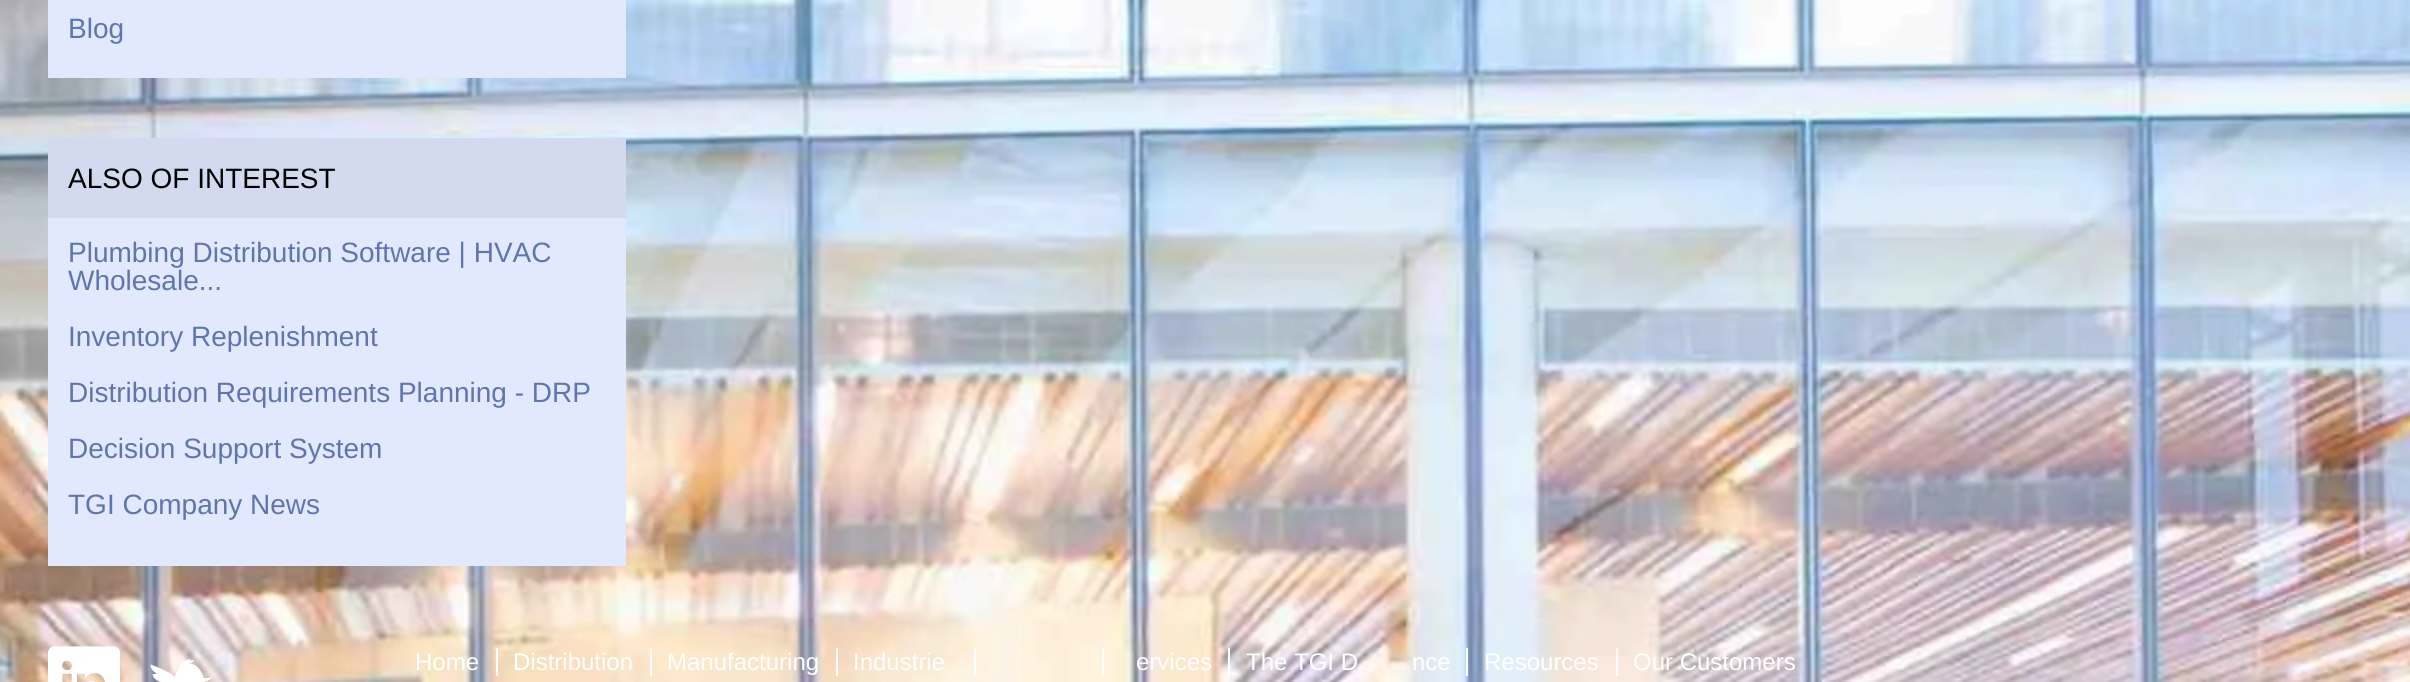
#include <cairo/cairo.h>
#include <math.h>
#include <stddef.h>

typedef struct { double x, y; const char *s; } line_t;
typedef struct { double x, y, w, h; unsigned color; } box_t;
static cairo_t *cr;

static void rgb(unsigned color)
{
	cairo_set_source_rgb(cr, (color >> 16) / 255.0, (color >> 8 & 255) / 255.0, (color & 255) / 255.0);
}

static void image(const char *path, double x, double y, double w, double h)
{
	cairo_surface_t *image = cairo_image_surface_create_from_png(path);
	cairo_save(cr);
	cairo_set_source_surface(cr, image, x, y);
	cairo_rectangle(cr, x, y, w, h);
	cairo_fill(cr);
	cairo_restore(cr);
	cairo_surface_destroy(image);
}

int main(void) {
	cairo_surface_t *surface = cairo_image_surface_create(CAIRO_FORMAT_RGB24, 2410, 682);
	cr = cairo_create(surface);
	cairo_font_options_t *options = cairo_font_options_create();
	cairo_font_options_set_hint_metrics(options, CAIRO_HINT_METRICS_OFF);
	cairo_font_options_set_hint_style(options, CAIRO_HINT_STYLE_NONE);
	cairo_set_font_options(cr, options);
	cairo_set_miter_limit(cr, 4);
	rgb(0xffffff);
	cairo_paint(cr);
	image("img/1.png", 0, 0, 2410, 682);
	{
		static const box_t items[] = {
			{48, 0, 578, 78, 0xe2e9fe},
			{48, 218, 578, 348, 0xe2e9fe},
			{48, 138, 578, 80, 0xd3daef},
		};
		for (size_t i = 0; i < sizeof items / sizeof *items; i++) {
			rgb(items[i].color);
			cairo_rectangle(cr, items[i].x, items[i].y, items[i].w, items[i].h);
			cairo_fill(cr);
		}
	}
	image("img/2.png", 48, 646, 72, 36);
	image("img/3.png", 150, 659, 62, 23);
	{
		static const box_t items[] = {
			{496, 648, 2, 28, 0xffffff},
			{650, 648, 2, 28, 0xffffff},
			{836, 648, 2, 28, 0xffffff},
			{974, 648, 2, 28, 0xffffff},
			{1102, 648, 2, 28, 0xffffff},
			{1228, 648, 2, 28, 0xffffff},
			{1466, 648, 2, 28, 0xffffff},
			{1616, 648, 2, 28, 0xffffff},
		};
		for (size_t i = 0; i < sizeof items / sizeof *items; i++) {
			rgb(items[i].color);
			cairo_rectangle(cr, items[i].x, items[i].y, items[i].w, items[i].h);
			cairo_fill(cr);
		}
	}
	cairo_select_font_face(cr, "Liberation Sans", CAIRO_FONT_SLANT_NORMAL, CAIRO_FONT_WEIGHT_NORMAL);
	cairo_set_font_size(cr, 28);
	rgb(0x6075ae);
	cairo_move_to(cr, 68, 38);
	cairo_show_text(cr, "Blog");
	rgb(0x000000);
	cairo_move_to(cr, 68, 188);
	cairo_show_text(cr, "ALSO OF INTEREST");
	rgb(0x6075ae);
	{
		static const line_t items[] = {
			{68, 262, "Plumbing Distribution Software | HVAC"},
			{68, 290, "Wholesale..."},
			{68, 346, "Inventory Replenishment"},
			{68, 402, "Distribution Requirements Planning - DRP"},
			{68, 458, "Decision Support System"},
			{68, 514, "TGI Company News"},
		};
		for (size_t i = 0; i < sizeof items / sizeof *items; i++) {
			cairo_move_to(cr, items[i].x, items[i].y);
			cairo_show_text(cr, items[i].s);
		}
	}
	cairo_set_font_size(cr, 24);
	rgb(0xffffff);
	{
		static const line_t items[] = {
			{415, 670, "Home"},
			{513, 670, "Distribution"},
			{667, 670, "Manufacturing"},
			{853, 670, "Industrie"},
			{1136, 670, "ervices"},
			{1246, 670, "The TGI D"},
			{1412, 670, "nce"},
			{1484, 670, "Resources"},
			{1633, 670, "Our Customers"},
		};
		for (size_t i = 0; i < sizeof items / sizeof *items; i++) {
			cairo_move_to(cr, items[i].x, items[i].y);
			cairo_show_text(cr, items[i].s);
		}
	}
	cairo_surface_write_to_png(surface, "page.png");
	cairo_font_options_destroy(options);
	cairo_destroy(cr);
	cairo_surface_destroy(surface);
	return 0;
}
